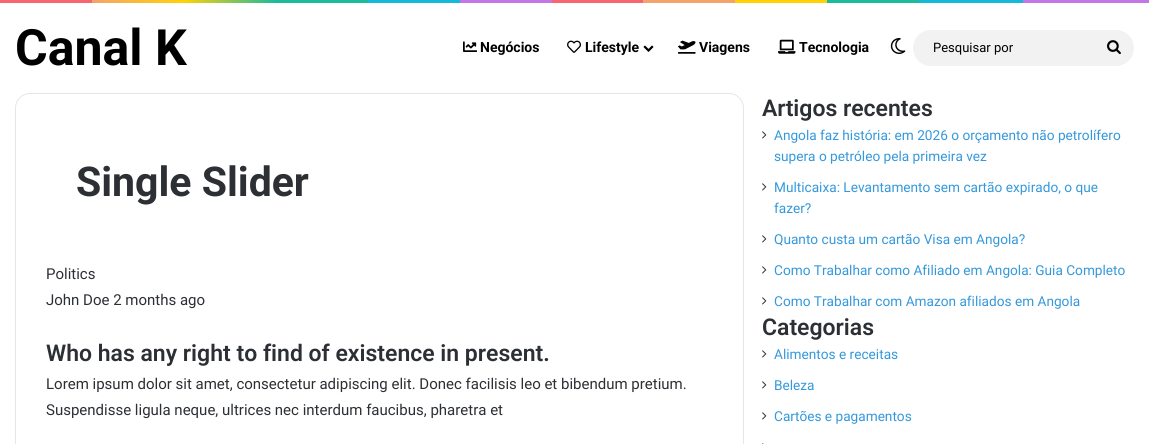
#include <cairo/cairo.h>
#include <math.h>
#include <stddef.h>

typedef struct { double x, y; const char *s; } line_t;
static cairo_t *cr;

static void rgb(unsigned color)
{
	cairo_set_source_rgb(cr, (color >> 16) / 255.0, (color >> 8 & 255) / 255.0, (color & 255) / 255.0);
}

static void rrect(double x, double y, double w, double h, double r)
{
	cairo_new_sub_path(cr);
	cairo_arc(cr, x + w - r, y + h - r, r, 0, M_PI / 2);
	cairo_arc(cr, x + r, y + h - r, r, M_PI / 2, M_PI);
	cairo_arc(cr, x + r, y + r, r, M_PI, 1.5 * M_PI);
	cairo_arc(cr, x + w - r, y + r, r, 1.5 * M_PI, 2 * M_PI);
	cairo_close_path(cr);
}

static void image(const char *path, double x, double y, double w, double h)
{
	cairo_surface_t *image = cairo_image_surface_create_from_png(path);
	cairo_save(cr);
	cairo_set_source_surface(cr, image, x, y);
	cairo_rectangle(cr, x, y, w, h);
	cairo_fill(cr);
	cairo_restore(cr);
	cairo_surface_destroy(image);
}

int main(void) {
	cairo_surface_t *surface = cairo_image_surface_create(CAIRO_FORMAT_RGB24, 1149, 444);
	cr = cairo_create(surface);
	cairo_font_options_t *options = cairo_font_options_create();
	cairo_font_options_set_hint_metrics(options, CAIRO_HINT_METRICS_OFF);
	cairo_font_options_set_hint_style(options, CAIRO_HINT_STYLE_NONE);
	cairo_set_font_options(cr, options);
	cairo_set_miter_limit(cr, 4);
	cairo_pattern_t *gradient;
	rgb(0xffffff);
	cairo_paint(cr);
	gradient = cairo_pattern_create_linear(0, 1.5, 1149, 1.5);
	cairo_pattern_add_color_stop_rgba(gradient, 0, 0.969, 0.396, 0.439, 1);
	cairo_pattern_add_color_stop_rgba(gradient, 0.08, 0.969, 0.396, 0.439, 1);
	cairo_pattern_add_color_stop_rgba(gradient, 0.08, 0.953, 0.643, 0.42, 1);
	cairo_pattern_add_color_stop_rgba(gradient, 0.16, 1, 0.824, 0.02, 1);
	cairo_pattern_add_color_stop_rgba(gradient, 0.24, 0.106, 0.737, 0.608, 1);
	cairo_pattern_add_color_stop_rgba(gradient, 0.32, 0.106, 0.737, 0.608, 1);
	cairo_pattern_add_color_stop_rgba(gradient, 0.32, 0.078, 0.725, 0.835, 1);
	cairo_pattern_add_color_stop_rgba(gradient, 0.4, 0.078, 0.725, 0.835, 1);
	cairo_pattern_add_color_stop_rgba(gradient, 0.4, 0.765, 0.467, 0.894, 1);
	cairo_pattern_add_color_stop_rgba(gradient, 0.48, 0.765, 0.467, 0.894, 1);
	cairo_pattern_add_color_stop_rgba(gradient, 0.48, 0.969, 0.396, 0.439, 1);
	cairo_pattern_add_color_stop_rgba(gradient, 0.56, 0.969, 0.396, 0.439, 1);
	cairo_pattern_add_color_stop_rgba(gradient, 0.56, 0.953, 0.643, 0.42, 1);
	cairo_pattern_add_color_stop_rgba(gradient, 0.64, 0.953, 0.643, 0.42, 1);
	cairo_pattern_add_color_stop_rgba(gradient, 0.64, 1, 0.824, 0.02, 1);
	cairo_pattern_add_color_stop_rgba(gradient, 0.72, 1, 0.824, 0.02, 1);
	cairo_pattern_add_color_stop_rgba(gradient, 0.72, 0.106, 0.737, 0.608, 1);
	cairo_pattern_add_color_stop_rgba(gradient, 0.8, 0.106, 0.737, 0.608, 1);
	cairo_pattern_add_color_stop_rgba(gradient, 0.8, 0.078, 0.725, 0.835, 1);
	cairo_pattern_add_color_stop_rgba(gradient, 0.89, 0.078, 0.725, 0.835, 1);
	cairo_pattern_add_color_stop_rgba(gradient, 0.89, 0.765, 0.467, 0.894, 1);
	cairo_pattern_add_color_stop_rgba(gradient, 1, 0.765, 0.467, 0.894, 1);
	cairo_set_source(cr, gradient);
	cairo_pattern_destroy(gradient);
	cairo_rectangle(cr, 0, 0, 1149, 3);
	cairo_fill(cr);
	image("img/1.png", 463, 41, 14, 11);
	image("img/2.png", 567, 40, 14, 13);
	image("img/3.png", 643, 45, 11, 7);
	image("img/4.png", 678, 40, 18, 14);
	image("img/5.png", 778, 39, 18, 15);
	image("img/6.png", 890, 38, 16, 16);
	rgb(0xf2f2f2);
	rrect(913, 30, 221, 36, 18);
	cairo_fill(cr);
	image("img/7.png", 1107, 40, 14, 15);
	rrect(15.5, 93.5, 728, 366, 14.5);
	rgb(0xe6e6e6);
	cairo_set_line_width(cr, 1);
	cairo_stroke(cr);
	image("img/8.png", 762, 131, 5, 8);
	image("img/8.png", 762, 183, 5, 8);
	image("img/8.png", 762, 235, 5, 8);
	image("img/8.png", 762, 266, 5, 8);
	image("img/8.png", 762, 297, 5, 8);
	image("img/8.png", 762, 350, 5, 8);
	image("img/8.png", 762, 381, 5, 8);
	image("img/8.png", 762, 412, 5, 8);
	image("img/9.png", 762, 443, 2, 1);
	cairo_select_font_face(cr, "Roboto", CAIRO_FONT_SLANT_NORMAL, CAIRO_FONT_WEIGHT_BOLD);
	cairo_set_font_size(cr, 50);
	rgb(0x000000);
	cairo_move_to(cr, 15, 65);
	cairo_show_text(cr, "Canal K");
	cairo_set_font_size(cr, 14);
	{
		static const line_t items[] = {
			{480, 52, "Negócios"},
			{585, 52, "Lifestyle"},
			{699, 52, "Viagens"},
			{799, 52, "Tecnologia"},
		};
		for (size_t i = 0; i < sizeof items / sizeof *items; i++) {
			cairo_move_to(cr, items[i].x, items[i].y);
			cairo_show_text(cr, items[i].s);
		}
	}
	cairo_select_font_face(cr, "Roboto", CAIRO_FONT_SLANT_NORMAL, CAIRO_FONT_WEIGHT_NORMAL);
	cairo_set_font_size(cr, 13);
	cairo_move_to(cr, 933, 52);
	cairo_show_text(cr, "Pesquisar por");
	cairo_select_font_face(cr, "Roboto", CAIRO_FONT_SLANT_NORMAL, CAIRO_FONT_WEIGHT_BOLD);
	cairo_set_font_size(cr, 41);
	rgb(0x2c2f34);
	cairo_move_to(cr, 76, 196);
	cairo_show_text(cr, "Single Slider");
	cairo_select_font_face(cr, "Roboto", CAIRO_FONT_SLANT_NORMAL, CAIRO_FONT_WEIGHT_NORMAL);
	cairo_set_font_size(cr, 15);
	cairo_move_to(cr, 46, 279);
	cairo_show_text(cr, "Politics");
	cairo_move_to(cr, 46, 305);
	cairo_show_text(cr, "John Doe 2 months ago");
	cairo_select_font_face(cr, "Roboto SemiBold", CAIRO_FONT_SLANT_NORMAL, CAIRO_FONT_WEIGHT_NORMAL);
	cairo_set_font_size(cr, 23);
	cairo_move_to(cr, 46, 361);
	cairo_show_text(cr, "Who has any right to find of existence in present.");
	cairo_select_font_face(cr, "Roboto", CAIRO_FONT_SLANT_NORMAL, CAIRO_FONT_WEIGHT_NORMAL);
	cairo_set_font_size(cr, 15);
	cairo_move_to(cr, 46, 389);
	cairo_show_text(cr, "Lorem ipsum dolor sit amet, consectetur adipiscing elit. Donec facilisis leo et bibendum pretium.");
	cairo_move_to(cr, 46, 415);
	cairo_show_text(cr, "Suspendisse ligula neque, ultrices nec interdum faucibus, pharetra et");
	cairo_select_font_face(cr, "Roboto SemiBold", CAIRO_FONT_SLANT_NORMAL, CAIRO_FONT_WEIGHT_NORMAL);
	cairo_set_font_size(cr, 23);
	cairo_move_to(cr, 762, 116);
	cairo_show_text(cr, "Artigos recentes");
	cairo_select_font_face(cr, "Roboto", CAIRO_FONT_SLANT_NORMAL, CAIRO_FONT_WEIGHT_NORMAL);
	cairo_set_font_size(cr, 13.65);
	rgb(0x3498db);
	{
		static const line_t items[] = {
			{774, 140, "Angola faz história: em 2026 o orçamento não petrolífero"},
			{774, 161, "supera o petróleo pela primeira vez"},
			{774, 192, "Multicaixa: Levantamento sem cartão expirado, o que"},
			{774, 213, "fazer?"},
			{774, 244, "Quanto custa um cartão Visa em Angola?"},
			{774, 275, "Como Trabalhar como Afiliado em Angola: Guia Completo"},
			{774, 306, "Como Trabalhar com Amazon afiliados em Angola"},
		};
		for (size_t i = 0; i < sizeof items / sizeof *items; i++) {
			cairo_move_to(cr, items[i].x, items[i].y);
			cairo_show_text(cr, items[i].s);
		}
	}
	cairo_select_font_face(cr, "Roboto SemiBold", CAIRO_FONT_SLANT_NORMAL, CAIRO_FONT_WEIGHT_NORMAL);
	cairo_set_font_size(cr, 23);
	rgb(0x2c2f34);
	cairo_move_to(cr, 762, 335);
	cairo_show_text(cr, "Categorias");
	cairo_select_font_face(cr, "Roboto", CAIRO_FONT_SLANT_NORMAL, CAIRO_FONT_WEIGHT_NORMAL);
	cairo_set_font_size(cr, 13.65);
	rgb(0x3498db);
	{
		static const line_t items[] = {
			{774, 359, "Alimentos e receitas"},
			{774, 390, "Beleza"},
			{774, 421, "Cartões e pagamentos"},
		};
		for (size_t i = 0; i < sizeof items / sizeof *items; i++) {
			cairo_move_to(cr, items[i].x, items[i].y);
			cairo_show_text(cr, items[i].s);
		}
	}
	cairo_surface_write_to_png(surface, "page.png");
	cairo_font_options_destroy(options);
	cairo_destroy(cr);
	cairo_surface_destroy(surface);
	return 0;
}
